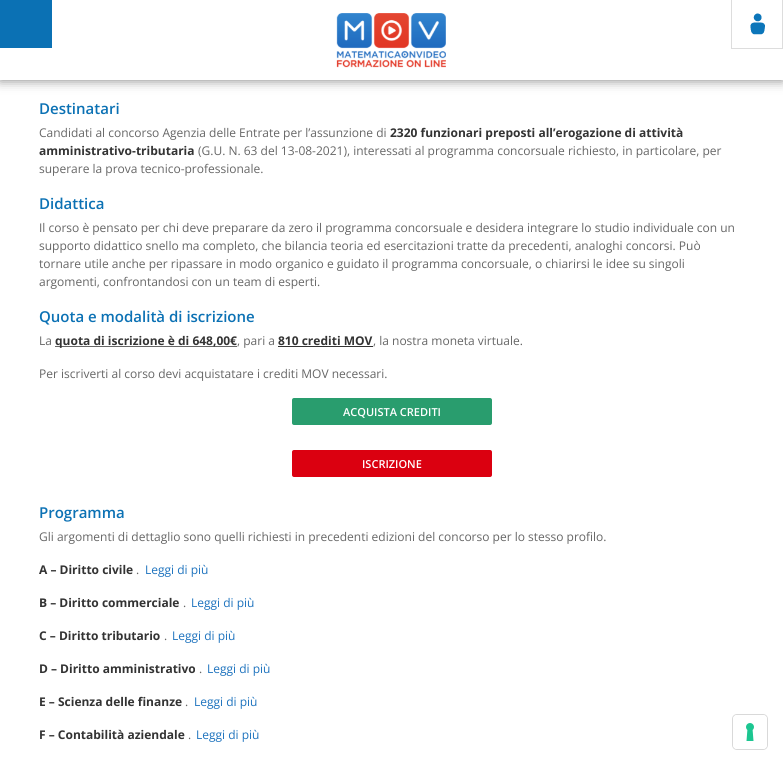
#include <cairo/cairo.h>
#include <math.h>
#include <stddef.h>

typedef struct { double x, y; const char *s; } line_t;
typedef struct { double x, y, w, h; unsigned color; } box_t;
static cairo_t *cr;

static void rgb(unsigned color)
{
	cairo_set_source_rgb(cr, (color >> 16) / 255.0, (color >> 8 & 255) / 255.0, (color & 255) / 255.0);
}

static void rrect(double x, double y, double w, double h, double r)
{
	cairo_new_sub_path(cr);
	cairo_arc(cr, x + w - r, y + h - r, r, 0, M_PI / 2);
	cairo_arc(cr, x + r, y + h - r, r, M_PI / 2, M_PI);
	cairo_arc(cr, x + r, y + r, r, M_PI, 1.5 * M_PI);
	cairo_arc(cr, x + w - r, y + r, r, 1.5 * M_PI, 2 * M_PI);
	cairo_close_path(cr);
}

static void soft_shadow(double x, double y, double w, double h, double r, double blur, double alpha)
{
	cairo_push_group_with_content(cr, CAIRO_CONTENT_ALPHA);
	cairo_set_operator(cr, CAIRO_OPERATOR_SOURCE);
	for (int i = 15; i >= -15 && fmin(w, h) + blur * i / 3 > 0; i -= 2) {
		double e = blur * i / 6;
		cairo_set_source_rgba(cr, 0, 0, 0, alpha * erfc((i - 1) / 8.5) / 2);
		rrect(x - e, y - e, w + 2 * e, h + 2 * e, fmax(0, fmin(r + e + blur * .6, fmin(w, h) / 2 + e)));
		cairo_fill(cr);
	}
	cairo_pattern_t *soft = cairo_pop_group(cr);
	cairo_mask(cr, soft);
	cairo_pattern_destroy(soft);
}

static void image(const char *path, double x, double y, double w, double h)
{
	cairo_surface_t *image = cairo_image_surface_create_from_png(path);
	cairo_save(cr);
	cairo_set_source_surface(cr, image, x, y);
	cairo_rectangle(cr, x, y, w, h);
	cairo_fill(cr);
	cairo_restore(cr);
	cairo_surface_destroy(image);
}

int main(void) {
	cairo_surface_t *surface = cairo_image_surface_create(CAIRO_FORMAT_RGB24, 783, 765);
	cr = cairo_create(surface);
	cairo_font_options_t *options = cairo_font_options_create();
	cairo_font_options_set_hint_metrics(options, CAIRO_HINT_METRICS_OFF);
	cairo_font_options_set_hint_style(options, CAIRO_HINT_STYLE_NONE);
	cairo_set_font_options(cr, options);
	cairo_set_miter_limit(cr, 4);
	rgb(0xffffff);
	cairo_paint(cr);
	rgb(0x000000);
	soft_shadow(0, 0, 783, 80, 0, 6, 0.5);
	rgb(0xffffff);
	cairo_rectangle(cr, 0, 0, 783, 80);
	cairo_fill(cr);
	rgb(0x0b71b4);
	cairo_rectangle(cr, 0, 0, 52, 48);
	cairo_fill(cr);
	image("img/1.png", 336, 13, 110, 55);
	image("img/2.png", 750, 13, 15, 22);
	{
		static const box_t items[] = {
			{782, 0, 1, 49, 0xdddddd},
			{731, 48, 52, 1, 0xdddddd},
			{731, 0, 1, 49, 0xdddddd},
			{55, 346, 182, 1, 0x666666},
			{278, 346, 95, 1, 0x333333},
		};
		for (size_t i = 0; i < sizeof items / sizeof *items; i++) {
			rgb(items[i].color);
			cairo_rectangle(cr, items[i].x, items[i].y, items[i].w, items[i].h);
			cairo_fill(cr);
		}
	}
	rgb(0x299d6e);
	rrect(292, 398, 200, 27, 2);
	cairo_fill(cr);
	rgb(0xdb0010);
	rrect(292, 450, 200, 27, 2);
	cairo_fill(cr);
	rrect(732.5, 714.5, 35, 35, 4.5);
	rgb(0xd9d9d9);
	cairo_set_line_width(cr, 1);
	cairo_stroke(cr);
	rgb(0xffffff);
	rrect(733, 715, 34, 34, 4);
	cairo_fill(cr);
	image("img/3.png", 746, 723, 8, 18);
	cairo_select_font_face(cr, "Open Sans SemiBold", CAIRO_FONT_SLANT_NORMAL, CAIRO_FONT_WEIGHT_NORMAL);
	cairo_set_font_size(cr, 15);
	rgb(0x0b71b4);
	cairo_move_to(cr, 39, 114);
	cairo_show_text(cr, "Destinatari");
	cairo_select_font_face(cr, "Open Sans", CAIRO_FONT_SLANT_NORMAL, CAIRO_FONT_WEIGHT_NORMAL);
	cairo_set_font_size(cr, 12);
	rgb(0x666666);
	cairo_move_to(cr, 39, 137);
	cairo_show_text(cr, "Candidati al concorso Agenzia delle Entrate per l’assunzione di");
	cairo_select_font_face(cr, "Open Sans", CAIRO_FONT_SLANT_NORMAL, CAIRO_FONT_WEIGHT_BOLD);
	rgb(0x333333);
	cairo_move_to(cr, 390, 137);
	cairo_show_text(cr, "2320 funzionari preposti all’erogazione di attività");
	cairo_move_to(cr, 39, 155);
	cairo_show_text(cr, "amministrativo-tributaria");
	cairo_select_font_face(cr, "Open Sans", CAIRO_FONT_SLANT_NORMAL, CAIRO_FONT_WEIGHT_NORMAL);
	rgb(0x666666);
	cairo_move_to(cr, 198, 155);
	cairo_show_text(cr, "(G.U. N. 63 del 13-08-2021), interessati al programma concorsuale richiesto, in particolare, per");
	cairo_move_to(cr, 39, 173);
	cairo_show_text(cr, "superare la prova tecnico-professionale.");
	cairo_select_font_face(cr, "Open Sans SemiBold", CAIRO_FONT_SLANT_NORMAL, CAIRO_FONT_WEIGHT_NORMAL);
	cairo_set_font_size(cr, 15);
	rgb(0x0b71b4);
	cairo_move_to(cr, 39, 209);
	cairo_show_text(cr, "Didattica");
	cairo_select_font_face(cr, "Open Sans", CAIRO_FONT_SLANT_NORMAL, CAIRO_FONT_WEIGHT_NORMAL);
	cairo_set_font_size(cr, 12);
	rgb(0x666666);
	{
		static const line_t items[] = {
			{39, 232, "Il corso è pensato per chi deve preparare da zero il programma concorsuale e desidera integrare lo studio individuale con un"},
			{39, 250, "supporto didattico snello ma completo, che bilancia teoria ed esercitazioni tratte da precedenti, analoghi concorsi. Può"},
			{39, 268, "tornare utile anche per ripassare in modo organico e guidato il programma concorsuale, o chiarirsi le idee su singoli"},
			{39, 286, "argomenti, confrontandosi con un team di esperti."},
		};
		for (size_t i = 0; i < sizeof items / sizeof *items; i++) {
			cairo_move_to(cr, items[i].x, items[i].y);
			cairo_show_text(cr, items[i].s);
		}
	}
	cairo_select_font_face(cr, "Open Sans SemiBold", CAIRO_FONT_SLANT_NORMAL, CAIRO_FONT_WEIGHT_NORMAL);
	cairo_set_font_size(cr, 15);
	rgb(0x0b71b4);
	cairo_move_to(cr, 39, 322);
	cairo_show_text(cr, "Quota e modalità di iscrizione");
	cairo_select_font_face(cr, "Open Sans", CAIRO_FONT_SLANT_NORMAL, CAIRO_FONT_WEIGHT_NORMAL);
	cairo_set_font_size(cr, 12);
	rgb(0x666666);
	cairo_move_to(cr, 39, 345);
	cairo_show_text(cr, "La");
	cairo_select_font_face(cr, "Open Sans", CAIRO_FONT_SLANT_NORMAL, CAIRO_FONT_WEIGHT_BOLD);
	rgb(0x333333);
	cairo_move_to(cr, 55, 345);
	cairo_show_text(cr, "quota di iscrizione è di 648,00€");
	cairo_select_font_face(cr, "Open Sans", CAIRO_FONT_SLANT_NORMAL, CAIRO_FONT_WEIGHT_NORMAL);
	rgb(0x666666);
	cairo_move_to(cr, 237, 345);
	cairo_show_text(cr, ", pari a");
	cairo_select_font_face(cr, "Open Sans", CAIRO_FONT_SLANT_NORMAL, CAIRO_FONT_WEIGHT_BOLD);
	rgb(0x333333);
	cairo_move_to(cr, 278, 345);
	cairo_show_text(cr, "810 crediti MOV");
	cairo_select_font_face(cr, "Open Sans", CAIRO_FONT_SLANT_NORMAL, CAIRO_FONT_WEIGHT_NORMAL);
	rgb(0x666666);
	cairo_move_to(cr, 373, 345);
	cairo_show_text(cr, ", la nostra moneta virtuale.");
	cairo_move_to(cr, 39, 378);
	cairo_show_text(cr, "Per iscriverti al corso devi acquistatare i crediti MOV necessari.");
	cairo_select_font_face(cr, "Open Sans SemiBold", CAIRO_FONT_SLANT_NORMAL, CAIRO_FONT_WEIGHT_NORMAL);
	cairo_set_font_size(cr, 11);
	rgb(0xffffff);
	cairo_move_to(cr, 343, 416);
	cairo_show_text(cr, "ACQUISTA CREDITI");
	cairo_move_to(cr, 362, 468);
	cairo_show_text(cr, "ISCRIZIONE");
	cairo_set_font_size(cr, 15);
	rgb(0x0b71b4);
	cairo_move_to(cr, 39, 518);
	cairo_show_text(cr, "Programma");
	cairo_select_font_face(cr, "Open Sans", CAIRO_FONT_SLANT_NORMAL, CAIRO_FONT_WEIGHT_NORMAL);
	cairo_set_font_size(cr, 12);
	rgb(0x666666);
	cairo_move_to(cr, 39, 541);
	cairo_show_text(cr, "Gli argomenti di dettaglio sono quelli richiesti in precedenti edizioni del concorso per lo stesso profilo.");
	cairo_select_font_face(cr, "Open Sans", CAIRO_FONT_SLANT_NORMAL, CAIRO_FONT_WEIGHT_BOLD);
	rgb(0x333333);
	cairo_move_to(cr, 39, 574);
	cairo_show_text(cr, "A – Diritto civile");
	cairo_select_font_face(cr, "Open Sans", CAIRO_FONT_SLANT_NORMAL, CAIRO_FONT_WEIGHT_NORMAL);
	rgb(0x666666);
	cairo_move_to(cr, 136, 574);
	cairo_show_text(cr, ".");
	rgb(0x1e73be);
	cairo_move_to(cr, 145, 574);
	cairo_show_text(cr, "Leggi di più");
	cairo_select_font_face(cr, "Open Sans", CAIRO_FONT_SLANT_NORMAL, CAIRO_FONT_WEIGHT_BOLD);
	rgb(0x333333);
	cairo_move_to(cr, 39, 607);
	cairo_show_text(cr, "B – Diritto commerciale");
	cairo_select_font_face(cr, "Open Sans", CAIRO_FONT_SLANT_NORMAL, CAIRO_FONT_WEIGHT_NORMAL);
	rgb(0x666666);
	cairo_move_to(cr, 183, 607);
	cairo_show_text(cr, ".");
	rgb(0x1e73be);
	cairo_move_to(cr, 191, 607);
	cairo_show_text(cr, "Leggi di più");
	cairo_select_font_face(cr, "Open Sans", CAIRO_FONT_SLANT_NORMAL, CAIRO_FONT_WEIGHT_BOLD);
	rgb(0x333333);
	cairo_move_to(cr, 39, 640);
	cairo_show_text(cr, "C – Diritto tributario");
	cairo_select_font_face(cr, "Open Sans", CAIRO_FONT_SLANT_NORMAL, CAIRO_FONT_WEIGHT_NORMAL);
	rgb(0x666666);
	cairo_move_to(cr, 164, 640);
	cairo_show_text(cr, ".");
	rgb(0x1e73be);
	cairo_move_to(cr, 172, 640);
	cairo_show_text(cr, "Leggi di più");
	cairo_select_font_face(cr, "Open Sans", CAIRO_FONT_SLANT_NORMAL, CAIRO_FONT_WEIGHT_BOLD);
	rgb(0x333333);
	cairo_move_to(cr, 39, 673);
	cairo_show_text(cr, "D – Diritto amministrativo");
	cairo_select_font_face(cr, "Open Sans", CAIRO_FONT_SLANT_NORMAL, CAIRO_FONT_WEIGHT_NORMAL);
	rgb(0x666666);
	cairo_move_to(cr, 199, 673);
	cairo_show_text(cr, ".");
	rgb(0x1e73be);
	cairo_move_to(cr, 207, 673);
	cairo_show_text(cr, "Leggi di più");
	cairo_select_font_face(cr, "Open Sans", CAIRO_FONT_SLANT_NORMAL, CAIRO_FONT_WEIGHT_BOLD);
	rgb(0x333333);
	cairo_move_to(cr, 39, 706);
	cairo_show_text(cr, "E – Scienza delle finanze");
	cairo_select_font_face(cr, "Open Sans", CAIRO_FONT_SLANT_NORMAL, CAIRO_FONT_WEIGHT_NORMAL);
	rgb(0x666666);
	cairo_move_to(cr, 185, 706);
	cairo_show_text(cr, ".");
	rgb(0x1e73be);
	cairo_move_to(cr, 194, 706);
	cairo_show_text(cr, "Leggi di più");
	cairo_select_font_face(cr, "Open Sans", CAIRO_FONT_SLANT_NORMAL, CAIRO_FONT_WEIGHT_BOLD);
	rgb(0x333333);
	cairo_move_to(cr, 39, 739);
	cairo_show_text(cr, "F – Contabilità aziendale");
	cairo_select_font_face(cr, "Open Sans", CAIRO_FONT_SLANT_NORMAL, CAIRO_FONT_WEIGHT_NORMAL);
	rgb(0x666666);
	cairo_move_to(cr, 188, 739);
	cairo_show_text(cr, ".");
	rgb(0x1e73be);
	cairo_move_to(cr, 196, 739);
	cairo_show_text(cr, "Leggi di più");
	cairo_surface_write_to_png(surface, "page.png");
	cairo_font_options_destroy(options);
	cairo_destroy(cr);
	cairo_surface_destroy(surface);
	return 0;
}
